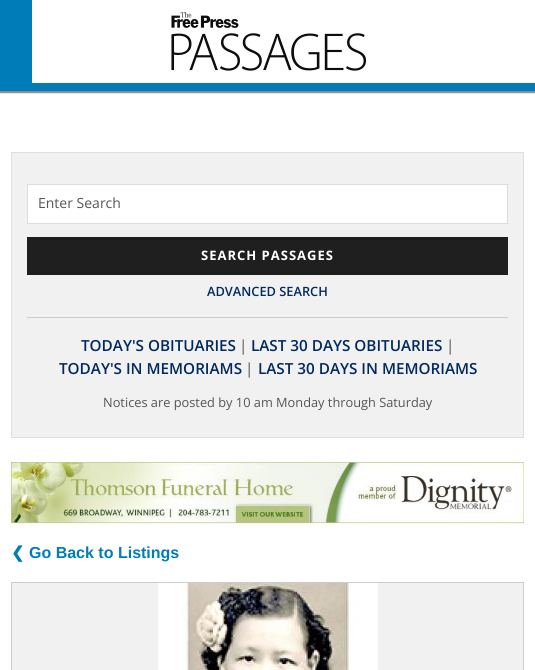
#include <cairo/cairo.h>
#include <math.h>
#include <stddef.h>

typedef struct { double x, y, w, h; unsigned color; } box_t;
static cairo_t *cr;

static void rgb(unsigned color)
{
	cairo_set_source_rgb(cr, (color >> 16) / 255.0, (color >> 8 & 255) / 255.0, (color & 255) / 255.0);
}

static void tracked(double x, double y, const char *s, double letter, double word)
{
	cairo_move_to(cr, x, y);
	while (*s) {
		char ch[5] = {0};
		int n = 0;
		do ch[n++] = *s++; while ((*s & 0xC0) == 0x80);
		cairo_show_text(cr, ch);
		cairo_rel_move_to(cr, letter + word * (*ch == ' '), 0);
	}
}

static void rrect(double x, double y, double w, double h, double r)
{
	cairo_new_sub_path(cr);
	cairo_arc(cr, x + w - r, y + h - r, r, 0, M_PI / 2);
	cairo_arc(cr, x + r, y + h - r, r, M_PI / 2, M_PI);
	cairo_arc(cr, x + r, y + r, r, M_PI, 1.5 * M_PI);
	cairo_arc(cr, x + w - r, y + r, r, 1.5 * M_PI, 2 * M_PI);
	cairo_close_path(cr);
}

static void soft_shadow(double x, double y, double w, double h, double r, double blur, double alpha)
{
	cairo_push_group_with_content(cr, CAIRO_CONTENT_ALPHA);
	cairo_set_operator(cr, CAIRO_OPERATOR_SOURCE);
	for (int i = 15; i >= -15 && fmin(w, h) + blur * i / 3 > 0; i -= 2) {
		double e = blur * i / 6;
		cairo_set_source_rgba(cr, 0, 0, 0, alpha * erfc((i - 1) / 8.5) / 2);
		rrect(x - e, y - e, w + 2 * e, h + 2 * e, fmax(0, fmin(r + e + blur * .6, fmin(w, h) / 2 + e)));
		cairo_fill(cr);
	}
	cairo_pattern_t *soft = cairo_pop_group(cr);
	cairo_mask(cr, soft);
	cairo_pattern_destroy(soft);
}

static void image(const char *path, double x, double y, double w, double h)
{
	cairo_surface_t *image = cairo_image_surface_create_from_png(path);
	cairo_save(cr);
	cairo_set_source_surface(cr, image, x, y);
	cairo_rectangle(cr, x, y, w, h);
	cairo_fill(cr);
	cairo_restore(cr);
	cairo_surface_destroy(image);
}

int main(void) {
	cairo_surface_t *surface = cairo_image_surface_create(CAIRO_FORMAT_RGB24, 535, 670);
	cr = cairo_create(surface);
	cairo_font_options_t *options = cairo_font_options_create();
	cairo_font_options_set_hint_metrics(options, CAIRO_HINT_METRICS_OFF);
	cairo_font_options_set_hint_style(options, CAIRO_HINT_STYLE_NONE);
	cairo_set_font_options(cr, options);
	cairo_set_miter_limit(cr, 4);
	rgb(0xffffff);
	cairo_paint(cr);
	rgb(0x888888);
	soft_shadow(-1, 0, 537, 93, 0, 0.5, 1);
	{
		static const box_t items[] = {
			{32, 0, 503, 83, 0xffffff},
			{0, 83, 535, 8, 0x007db8},
			{0, 0, 32, 83, 0x007db8},
		};
		for (size_t i = 0; i < sizeof items / sizeof *items; i++) {
			rgb(items[i].color);
			cairo_rectangle(cr, items[i].x, items[i].y, items[i].w, items[i].h);
			cairo_fill(cr);
		}
	}
	image("img/1.png", 171, 12, 196, 59);
	rgb(0xf1f1f1);
	cairo_rectangle(cr, 11.5, 152.5, 512, 285);
	cairo_fill_preserve(cr);
	rgb(0xdfdfdf);
	cairo_set_line_width(cr, 1);
	cairo_stroke(cr);
	rgb(0xffffff);
	cairo_rectangle(cr, 27.5, 184.5, 480, 39);
	cairo_fill_preserve(cr);
	rgb(0xdddddd);
	cairo_stroke(cr);
	rgb(0x1f1f1f);
	cairo_rectangle(cr, 27, 237, 481, 38);
	cairo_fill(cr);
	rgb(0xcccccc);
	cairo_rectangle(cr, 27, 317, 481, 1);
	cairo_fill(cr);
	image("img/2.png", 10, 462, 514, 62);
	rgb(0xf1f1f1);
	cairo_rectangle(cr, 11.5, 582.5, 512, 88);
	cairo_fill_preserve(cr);
	rgb(0xcccccc);
	cairo_stroke(cr);
	image("img/3.png", 158, 583, 220, 87);
	cairo_select_font_face(cr, "Open Sans", CAIRO_FONT_SLANT_NORMAL, CAIRO_FONT_WEIGHT_NORMAL);
	cairo_set_font_size(cr, 14);
	rgb(0x555555);
	cairo_move_to(cr, 38, 208);
	cairo_show_text(cr, "Enter Search");
	cairo_select_font_face(cr, "Open Sans", CAIRO_FONT_SLANT_NORMAL, CAIRO_FONT_WEIGHT_BOLD);
	cairo_set_font_size(cr, 13);
	rgb(0xffffff);
	tracked(201, 260, "SEARCH PASSAGES", 1, 0);
	cairo_select_font_face(cr, "Open Sans SemiBold", CAIRO_FONT_SLANT_NORMAL, CAIRO_FONT_WEIGHT_NORMAL);
	cairo_set_font_size(cr, 12.8);
	rgb(0x002a5d);
	cairo_move_to(cr, 207, 296);
	cairo_show_text(cr, "ADVANCED SEARCH");
	cairo_set_font_size(cr, 15.25);
	cairo_move_to(cr, 81, 351);
	cairo_show_text(cr, "TODAY'S OBITUARIES");
	cairo_select_font_face(cr, "Open Sans", CAIRO_FONT_SLANT_NORMAL, CAIRO_FONT_WEIGHT_NORMAL);
	rgb(0x555555);
	cairo_move_to(cr, 239, 351);
	cairo_show_text(cr, "|");
	cairo_select_font_face(cr, "Open Sans SemiBold", CAIRO_FONT_SLANT_NORMAL, CAIRO_FONT_WEIGHT_NORMAL);
	rgb(0x002a5d);
	cairo_move_to(cr, 251, 351);
	cairo_show_text(cr, "LAST 30 DAYS OBITUARIES");
	cairo_select_font_face(cr, "Open Sans", CAIRO_FONT_SLANT_NORMAL, CAIRO_FONT_WEIGHT_NORMAL);
	rgb(0x555555);
	cairo_move_to(cr, 446, 351);
	cairo_show_text(cr, "|");
	cairo_select_font_face(cr, "Open Sans SemiBold", CAIRO_FONT_SLANT_NORMAL, CAIRO_FONT_WEIGHT_NORMAL);
	rgb(0x002a5d);
	cairo_move_to(cr, 59, 374);
	cairo_show_text(cr, "TODAY'S IN MEMORIAMS");
	cairo_select_font_face(cr, "Open Sans", CAIRO_FONT_SLANT_NORMAL, CAIRO_FONT_WEIGHT_NORMAL);
	rgb(0x555555);
	cairo_move_to(cr, 245, 374);
	cairo_show_text(cr, "|");
	cairo_select_font_face(cr, "Open Sans SemiBold", CAIRO_FONT_SLANT_NORMAL, CAIRO_FONT_WEIGHT_NORMAL);
	rgb(0x002a5d);
	cairo_move_to(cr, 258, 374);
	cairo_show_text(cr, "LAST 30 DAYS IN MEMORIAMS");
	cairo_select_font_face(cr, "Open Sans", CAIRO_FONT_SLANT_NORMAL, CAIRO_FONT_WEIGHT_NORMAL);
	cairo_set_font_size(cr, 12.8);
	rgb(0x555555);
	cairo_move_to(cr, 103, 407);
	cairo_show_text(cr, "Notices are posted by 10 am Monday through Saturday");
	cairo_select_font_face(cr, "DejaVu Sans", CAIRO_FONT_SLANT_NORMAL, CAIRO_FONT_WEIGHT_BOLD);
	cairo_set_font_size(cr, 16);
	rgb(0x007db8);
	cairo_move_to(cr, 11, 558);
	cairo_show_text(cr, "❮");
	cairo_select_font_face(cr, "Liberation Sans", CAIRO_FONT_SLANT_NORMAL, CAIRO_FONT_WEIGHT_BOLD);
	cairo_move_to(cr, 29, 558);
	cairo_show_text(cr, "Go Back to Listings");
	cairo_surface_write_to_png(surface, "page.png");
	cairo_font_options_destroy(options);
	cairo_destroy(cr);
	cairo_surface_destroy(surface);
	return 0;
}
